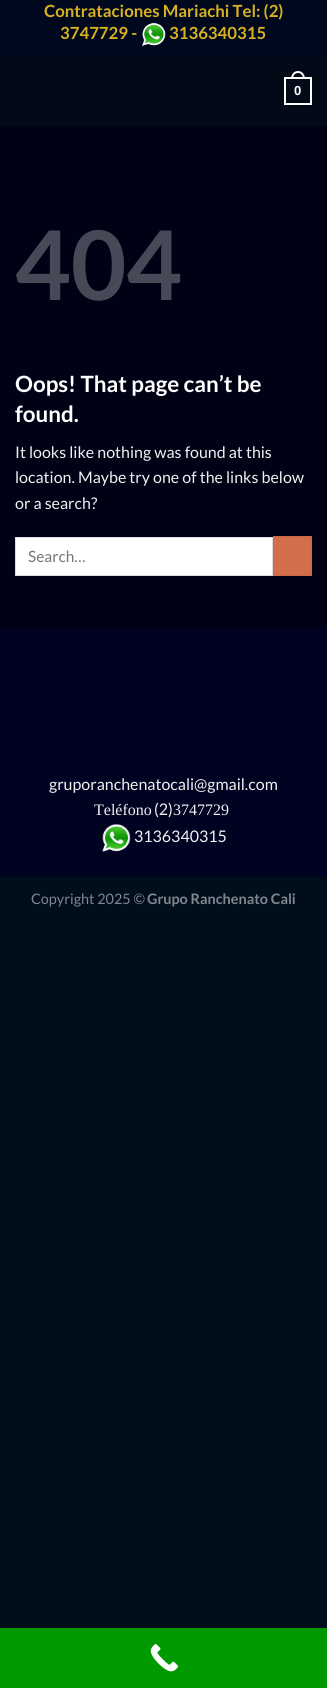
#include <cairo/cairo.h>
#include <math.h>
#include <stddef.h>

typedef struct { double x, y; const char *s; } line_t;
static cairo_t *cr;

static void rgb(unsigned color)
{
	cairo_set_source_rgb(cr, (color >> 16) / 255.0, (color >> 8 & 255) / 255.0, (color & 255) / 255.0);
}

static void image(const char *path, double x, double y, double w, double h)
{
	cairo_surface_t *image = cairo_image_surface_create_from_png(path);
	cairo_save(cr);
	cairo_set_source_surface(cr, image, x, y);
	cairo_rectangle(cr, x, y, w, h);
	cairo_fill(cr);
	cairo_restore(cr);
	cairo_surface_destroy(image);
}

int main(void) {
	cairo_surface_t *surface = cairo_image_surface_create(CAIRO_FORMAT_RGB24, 327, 1688);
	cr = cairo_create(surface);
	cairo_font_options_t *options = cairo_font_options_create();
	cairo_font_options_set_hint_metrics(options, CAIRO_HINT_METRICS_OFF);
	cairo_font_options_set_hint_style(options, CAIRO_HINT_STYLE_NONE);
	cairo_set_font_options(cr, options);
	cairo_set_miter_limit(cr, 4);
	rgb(0x000e1c);
	cairo_paint(cr);
	rgb(0x00081e);
	cairo_rectangle(cr, 0, 0, 327, 56);
	cairo_fill(cr);
	image("img/1.png", 142, 22, 24, 24);
	rgb(0x030916);
	cairo_rectangle(cr, 0, 56, 327, 70);
	cairo_fill(cr);
	cairo_rectangle(cr, 285, 78, 26, 26);
	rgb(0xffffff);
	cairo_stroke(cr);
	cairo_set_fill_rule(cr, CAIRO_FILL_RULE_EVEN_ODD);
	cairo_new_path(cr);
	cairo_move_to(cr, 298, 71);
	cairo_curve_to(cr, 302.5, 71, 305, 75, 305, 79);
	cairo_line_to(cr, 291, 79);
	cairo_curve_to(cr, 291, 75, 293.5, 71, 298, 71);
	cairo_close_path(cr);
	cairo_move_to(cr, 298, 73);
	cairo_curve_to(cr, 301.5, 73, 303, 76, 303, 79);
	cairo_line_to(cr, 293, 79);
	cairo_curve_to(cr, 293, 76, 294.5, 73, 298, 73);
	cairo_close_path(cr);
	cairo_fill(cr);
	rgb(0x000115);
	cairo_rectangle(cr, 0, 126, 327, 501);
	cairo_fill(cr);
	rgb(0xffffff);
	cairo_rectangle(cr, 15.5, 537.5, 257, 38);
	cairo_fill_preserve(cr);
	rgb(0xdddddd);
	cairo_set_line_width(cr, 1);
	cairo_stroke(cr);
	rgb(0xd26e4b);
	cairo_rectangle(cr, 273.5, 536.5, 38, 39);
	cairo_fill_preserve(cr);
	rgb(0xc86947);
	cairo_stroke(cr);
	rgb(0x000221);
	cairo_rectangle(cr, 0, 628, 327, 249);
	cairo_fill(cr);
	rgb(0x00021f);
	cairo_rectangle(cr, 0, 627, 327, 1);
	cairo_fill(cr);
	image("img/2.png", 102, 824, 29, 28);
	rgb(0x009900);
	cairo_rectangle(cr, 0, 1628, 327, 60);
	cairo_fill(cr);
	image("img/3.png", 150, 1644, 29, 28);
	cairo_select_font_face(cr, "Lato", CAIRO_FONT_SLANT_NORMAL, CAIRO_FONT_WEIGHT_BOLD);
	cairo_set_font_size(cr, 16.75);
	rgb(0xd9b121);
	{
		static const line_t items[] = {
			{44, 17, "Contrataciones Mariachi Tel: (2)"},
			{60, 39, "3747729 -"},
			{169, 39, "3136340315"},
		};
		for (size_t i = 0; i < sizeof items / sizeof *items; i++) {
			cairo_move_to(cr, items[i].x, items[i].y);
			cairo_show_text(cr, items[i].s);
		}
	}
	cairo_select_font_face(cr, "Liberation Sans", CAIRO_FONT_SLANT_NORMAL, CAIRO_FONT_WEIGHT_BOLD);
	cairo_set_font_size(cr, 13);
	rgb(0xffffff);
	cairo_move_to(cr, 294, 95);
	cairo_show_text(cr, "0");
	cairo_select_font_face(cr, "Lato", CAIRO_FONT_SLANT_NORMAL, CAIRO_FONT_WEIGHT_BOLD);
	cairo_set_font_size(cr, 96);
	rgb(0x484957);
	cairo_move_to(cr, 15, 300);
	cairo_show_text(cr, "404");
	cairo_set_font_size(cr, 22.4);
	rgb(0xffffff);
	cairo_move_to(cr, 15, 392);
	cairo_show_text(cr, "Oops! That page can’t be");
	cairo_move_to(cr, 15, 422);
	cairo_show_text(cr, "found.");
	cairo_select_font_face(cr, "Lato", CAIRO_FONT_SLANT_NORMAL, CAIRO_FONT_WEIGHT_NORMAL);
	cairo_set_font_size(cr, 16);
	rgb(0xf1f1f1);
	{
		static const line_t items[] = {
			{15, 458, "It looks like nothing was found at this"},
			{15, 483, "location. Maybe try one of the links below"},
			{15, 509, "or a search?"},
		};
		for (size_t i = 0; i < sizeof items / sizeof *items; i++) {
			cairo_move_to(cr, items[i].x, items[i].y);
			cairo_show_text(cr, items[i].s);
		}
	}
	cairo_set_font_size(cr, 15.5);
	rgb(0x757575);
	cairo_move_to(cr, 28, 562);
	cairo_show_text(cr, "Search…");
	cairo_set_font_size(cr, 16);
	rgb(0xf1f1f1);
	cairo_move_to(cr, 49, 790);
	cairo_show_text(cr, "gruporanchenatocali@gmail.com");
	cairo_select_font_face(cr, "Liberation Serif", CAIRO_FONT_SLANT_NORMAL, CAIRO_FONT_WEIGHT_NORMAL);
	cairo_move_to(cr, 94, 815);
	cairo_show_text(cr, "Teléfono");
	cairo_select_font_face(cr, "Lato", CAIRO_FONT_SLANT_NORMAL, CAIRO_FONT_WEIGHT_NORMAL);
	cairo_move_to(cr, 154, 815);
	cairo_show_text(cr, "(2)");
	cairo_select_font_face(cr, "Liberation Serif", CAIRO_FONT_SLANT_NORMAL, CAIRO_FONT_WEIGHT_NORMAL);
	cairo_move_to(cr, 173, 815);
	cairo_show_text(cr, "3747729");
	cairo_select_font_face(cr, "Lato", CAIRO_FONT_SLANT_NORMAL, CAIRO_FONT_WEIGHT_NORMAL);
	cairo_move_to(cr, 134, 842);
	cairo_show_text(cr, "3136340315");
	cairo_set_font_size(cr, 14.4);
	rgb(0x80878e);
	cairo_move_to(cr, 31, 904);
	cairo_show_text(cr, "Copyright 2025 ©");
	cairo_select_font_face(cr, "Lato", CAIRO_FONT_SLANT_NORMAL, CAIRO_FONT_WEIGHT_BOLD);
	cairo_move_to(cr, 147, 904);
	cairo_show_text(cr, "Grupo Ranchenato Cali");
	cairo_surface_write_to_png(surface, "page.png");
	cairo_font_options_destroy(options);
	cairo_destroy(cr);
	cairo_surface_destroy(surface);
	return 0;
}
